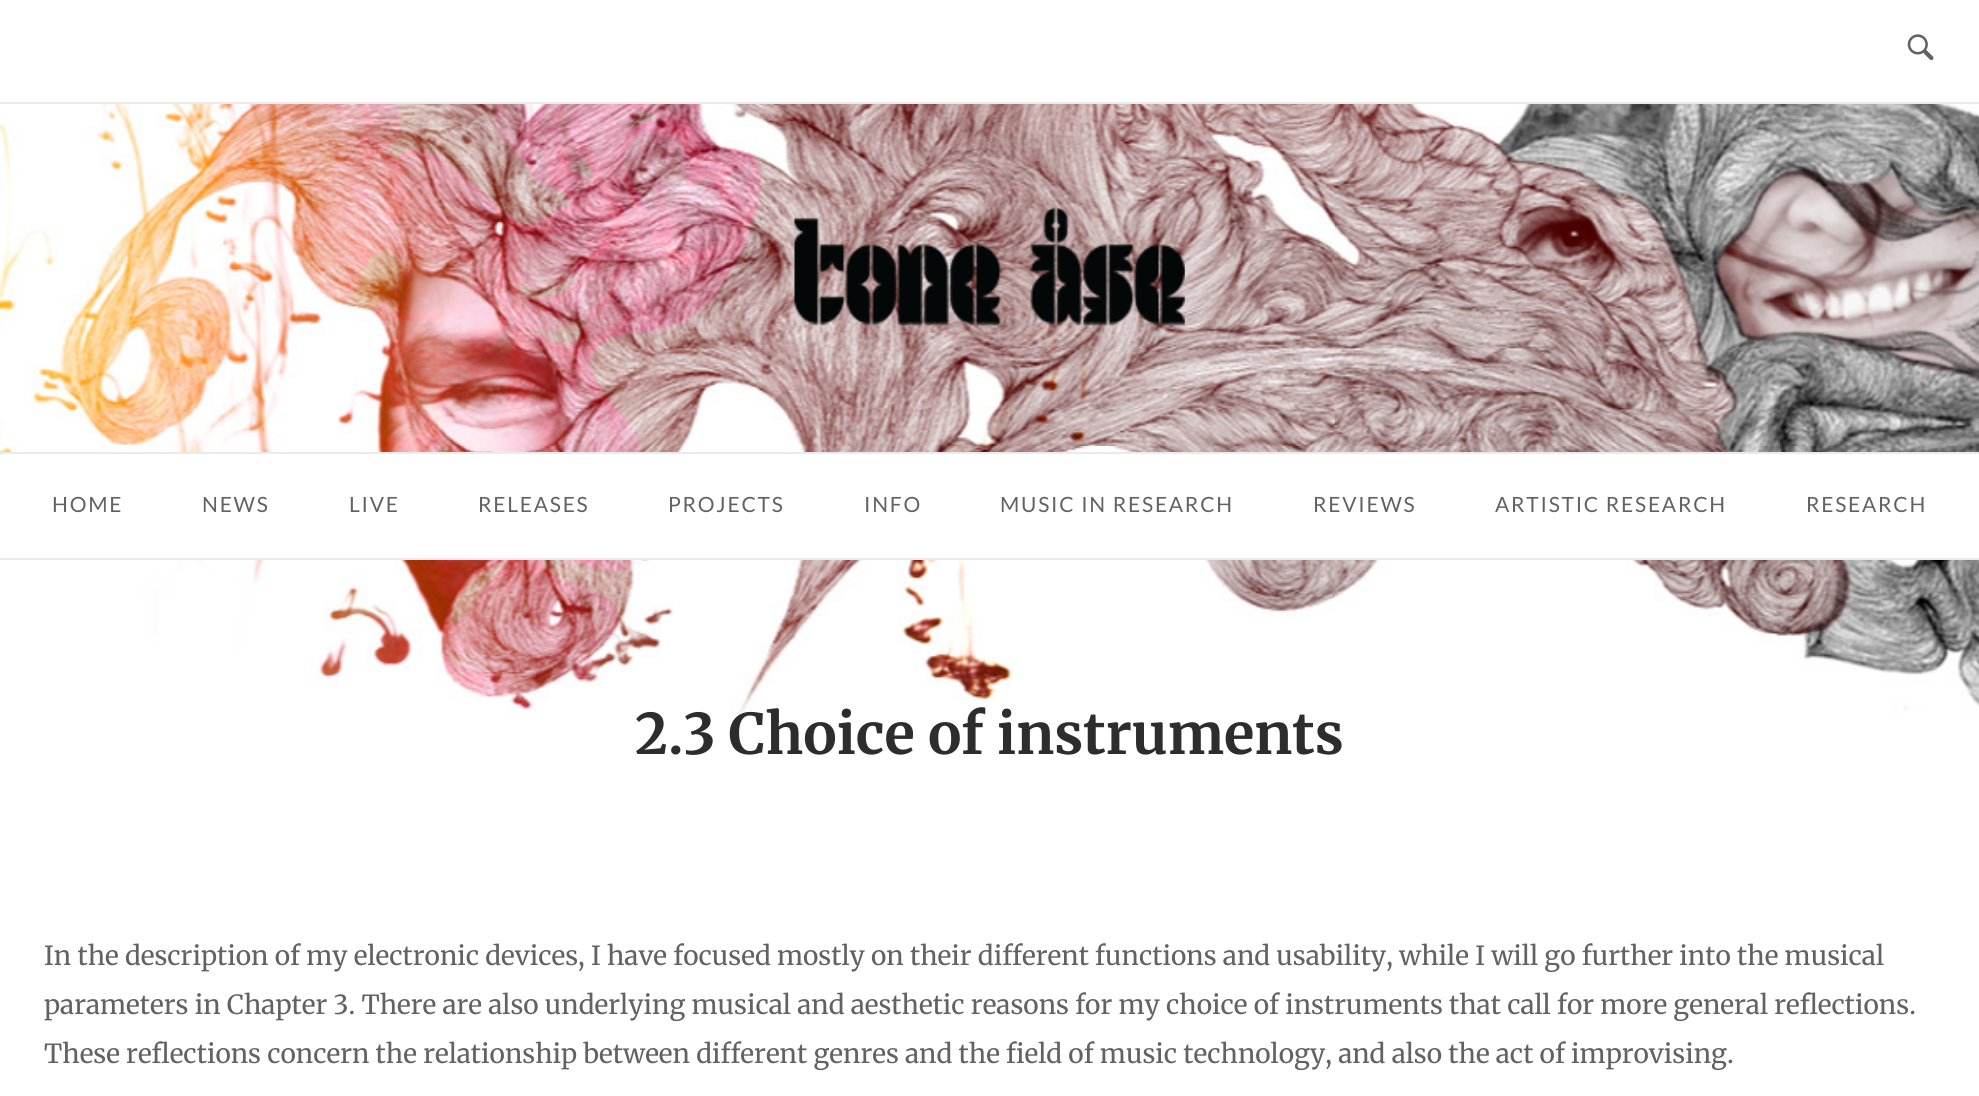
#include <cairo/cairo.h>
#include <math.h>
#include <stddef.h>

typedef struct { double x, y; const char *s; } line_t;
static cairo_t *cr;

static void rgb(unsigned color)
{
	cairo_set_source_rgb(cr, (color >> 16) / 255.0, (color >> 8 & 255) / 255.0, (color & 255) / 255.0);
}

static void tracked(double x, double y, const char *s, double letter, double word)
{
	cairo_move_to(cr, x, y);
	while (*s) {
		char ch[5] = {0};
		int n = 0;
		do ch[n++] = *s++; while ((*s & 0xC0) == 0x80);
		cairo_show_text(cr, ch);
		cairo_rel_move_to(cr, letter + word * (*ch == ' '), 0);
	}
}

static void image(const char *path, double x, double y, double w, double h)
{
	cairo_surface_t *image = cairo_image_surface_create_from_png(path);
	cairo_save(cr);
	cairo_set_source_surface(cr, image, x, y);
	cairo_rectangle(cr, x, y, w, h);
	cairo_fill(cr);
	cairo_restore(cr);
	cairo_surface_destroy(image);
}

int main(void) {
	cairo_surface_t *surface = cairo_image_surface_create(CAIRO_FORMAT_RGB24, 1979, 1096);
	cr = cairo_create(surface);
	cairo_font_options_t *options = cairo_font_options_create();
	cairo_font_options_set_hint_metrics(options, CAIRO_HINT_METRICS_OFF);
	cairo_font_options_set_hint_style(options, CAIRO_HINT_STYLE_NONE);
	cairo_set_font_options(cr, options);
	cairo_set_miter_limit(cr, 4);
	rgb(0xffffff);
	cairo_paint(cr);
	image("img/1.png", 0, 104, 1979, 613);
	rgb(0xebebeb);
	cairo_rectangle(cr, 0, 558, 1979, 2);
	cairo_fill(cr);
	cairo_rectangle(cr, 0, 102, 1979, 2);
	cairo_fill(cr);
	image("img/2.png", 1907, 34, 27, 27);
	image("img/3.png", 794, 207, 391, 119);
	rgb(0xffffff);
	cairo_rectangle(cr, 0, 454, 1979, 104);
	cairo_fill(cr);
	rgb(0xebebeb);
	cairo_rectangle(cr, 0, 452, 1979, 2);
	cairo_fill(cr);
	cairo_select_font_face(cr, "Lato", CAIRO_FONT_SLANT_NORMAL, CAIRO_FONT_WEIGHT_NORMAL);
	cairo_set_font_size(cr, 21);
	rgb(0x626262);
	{
		static const line_t items[] = {
			{52, 512, "HOME"},
			{202, 512, "NEWS"},
			{349, 512, "LIVE"},
			{478, 512, "RELEASES"},
			{668, 512, "PROJECTS"},
			{864, 512, "INFO"},
			{1000, 512, "MUSIC IN RESEARCH"},
			{1313, 512, "REVIEWS"},
			{1495, 512, "ARTISTIC RESEARCH"},
			{1806, 512, "RESEARCH"},
		};
		for (size_t i = 0; i < sizeof items / sizeof *items; i++) {
			tracked(items[i].x, items[i].y, items[i].s, 1.75, 0);
		}
	}
	cairo_select_font_face(cr, "Merriweather", CAIRO_FONT_SLANT_NORMAL, CAIRO_FONT_WEIGHT_BOLD);
	cairo_set_font_size(cr, 56);
	rgb(0x2d2d2d);
	cairo_move_to(cr, 635, 754);
	cairo_show_text(cr, "2.3 Choice of instruments");
	cairo_select_font_face(cr, "Merriweather", CAIRO_FONT_SLANT_NORMAL, CAIRO_FONT_WEIGHT_NORMAL);
	cairo_set_font_size(cr, 26.25);
	rgb(0x626262);
	{
		static const line_t items[] = {
			{44, 965, "In the description of my electronic devices, I have focused mostly on their different functions and usability, while I will go further into the musical"},
			{44, 1014, "parameters in Chapter 3. There are also underlying musical and aesthetic reasons for my choice of instruments that call for more general reflections."},
			{44, 1063, "These reflections concern the relationship between different genres and the field of music technology, and also the act of improvising."},
		};
		for (size_t i = 0; i < sizeof items / sizeof *items; i++) {
			cairo_move_to(cr, items[i].x, items[i].y);
			cairo_show_text(cr, items[i].s);
		}
	}
	cairo_surface_write_to_png(surface, "page.png");
	cairo_font_options_destroy(options);
	cairo_destroy(cr);
	cairo_surface_destroy(surface);
	return 0;
}
